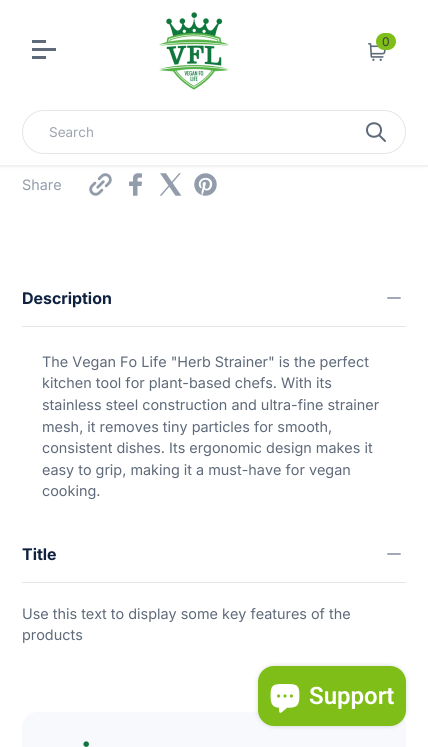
#include <cairo/cairo.h>
#include <math.h>
#include <stddef.h>

typedef struct { double x, y; const char *s; } line_t;
typedef struct { double x, y, w, h; unsigned color; } box_t;
static cairo_t *cr;

static void rgb(unsigned color)
{
	cairo_set_source_rgb(cr, (color >> 16) / 255.0, (color >> 8 & 255) / 255.0, (color & 255) / 255.0);
}

static void rrect(double x, double y, double w, double h, double r)
{
	cairo_new_sub_path(cr);
	cairo_arc(cr, x + w - r, y + h - r, r, 0, M_PI / 2);
	cairo_arc(cr, x + r, y + h - r, r, M_PI / 2, M_PI);
	cairo_arc(cr, x + r, y + r, r, M_PI, 1.5 * M_PI);
	cairo_arc(cr, x + w - r, y + r, r, 1.5 * M_PI, 2 * M_PI);
	cairo_close_path(cr);
}

static void soft_shadow(double x, double y, double w, double h, double r, double blur, double alpha)
{
	cairo_push_group_with_content(cr, CAIRO_CONTENT_ALPHA);
	cairo_set_operator(cr, CAIRO_OPERATOR_SOURCE);
	for (int i = 15; i >= -15 && fmin(w, h) + blur * i / 3 > 0; i -= 2) {
		double e = blur * i / 6;
		cairo_set_source_rgba(cr, 0, 0, 0, alpha * erfc((i - 1) / 8.5) / 2);
		rrect(x - e, y - e, w + 2 * e, h + 2 * e, fmax(0, fmin(r + e + blur * .6, fmin(w, h) / 2 + e)));
		cairo_fill(cr);
	}
	cairo_pattern_t *soft = cairo_pop_group(cr);
	cairo_mask(cr, soft);
	cairo_pattern_destroy(soft);
}

static void image(const char *path, double x, double y, double w, double h)
{
	cairo_surface_t *image = cairo_image_surface_create_from_png(path);
	cairo_save(cr);
	cairo_set_source_surface(cr, image, x, y);
	cairo_rectangle(cr, x, y, w, h);
	cairo_fill(cr);
	cairo_restore(cr);
	cairo_surface_destroy(image);
}

int main(void) {
	cairo_surface_t *surface = cairo_image_surface_create(CAIRO_FORMAT_RGB24, 428, 747);
	cr = cairo_create(surface);
	cairo_font_options_t *options = cairo_font_options_create();
	cairo_font_options_set_hint_metrics(options, CAIRO_HINT_METRICS_OFF);
	cairo_font_options_set_hint_style(options, CAIRO_HINT_STYLE_NONE);
	cairo_set_font_options(cr, options);
	cairo_set_miter_limit(cr, 4);
	rgb(0xffffff);
	cairo_paint(cr);
	rgb(0x000000);
	soft_shadow(0, 1, 428, 165, 0, 1.5, 0.1);
	{
		static const box_t items[] = {
			{0, 0, 428, 165, 0xffffff},
			{32, 40, 14, 3, 0x5e6979},
			{32, 48, 24, 3, 0x5e6979},
			{32, 56, 14, 3, 0x5e6979},
		};
		for (size_t i = 0; i < sizeof items / sizeof *items; i++) {
			rgb(items[i].color);
			cairo_rectangle(cr, items[i].x, items[i].y, items[i].w, items[i].h);
			cairo_fill(cr);
		}
	}
	image("img/1.png", 159, 12, 70, 78);
	image("img/2.png", 368, 43, 18, 18);
	rgb(0x7fbe19);
	rrect(376, 33, 20, 17, 8.5);
	cairo_fill(cr);
	rrect(22.5, 110.5, 383, 43, 21.5);
	rgb(0xe6e6e6);
	cairo_set_line_width(cr, 1);
	cairo_stroke(cr);
	cairo_new_path(cr);
	cairo_move_to(cr, 385, 141);
	cairo_line_to(cr, 379, 135);
	cairo_move_to(cr, 381, 130);
	cairo_curve_to(cr, 381, 139, 367, 139, 367, 130);
	cairo_curve_to(cr, 367, 121, 381, 121, 381, 130);
	cairo_close_path(cr);
	rgb(0x5e6979);
	cairo_set_line_width(cr, 2);
	cairo_set_line_cap(cr, CAIRO_LINE_CAP_ROUND);
	cairo_set_line_join(cr, CAIRO_LINE_JOIN_ROUND);
	cairo_stroke(cr);
	image("img/3.png", 89, 173, 23, 23);
	image("img/4.png", 129, 173, 13, 23);
	image("img/5.png", 159, 173, 23, 23);
	image("img/6.png", 194, 173, 23, 23);
	rgb(0xe6e6e6);
	cairo_rectangle(cr, 22, 326, 384, 1);
	cairo_fill(cr);
	cairo_new_path(cr);
	cairo_move_to(cr, 388, 298);
	cairo_line_to(cr, 400, 298);
	rgb(0x929cab);
	cairo_set_line_width(cr, 1.8);
	cairo_stroke(cr);
	rgb(0xe6e6e6);
	cairo_rectangle(cr, 22, 582, 384, 1);
	cairo_fill(cr);
	cairo_new_path(cr);
	cairo_move_to(cr, 388, 554);
	cairo_line_to(cr, 400, 554);
	rgb(0x929cab);
	cairo_stroke(cr);
	rgb(0xf8f9fd);
	rrect(22, 712, 384, 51, 16);
	cairo_fill(cr);
	rgb(0x000000);
	soft_shadow(258, 666, 148, 60, 16, 2.5, 0.15);
	rgb(0x7fbe19);
	rrect(258, 666, 148, 60, 16);
	cairo_fill(cr);
	image("img/7.png", 270, 684, 30, 29);
	image("img/8.png", 83, 741, 7, 6);
	cairo_select_font_face(cr, "Inter", CAIRO_FONT_SLANT_NORMAL, CAIRO_FONT_WEIGHT_NORMAL);
	cairo_set_font_size(cr, 12);
	rgb(0x3d3d3d);
	cairo_move_to(cr, 382, 46);
	cairo_show_text(cr, "0");
	cairo_set_font_size(cr, 13.5);
	rgb(0x9ea5af);
	cairo_move_to(cr, 49, 137);
	cairo_show_text(cr, "Search");
	cairo_set_font_size(cr, 14.4);
	rgb(0x929cab);
	cairo_move_to(cr, 22, 190);
	cairo_show_text(cr, "Share");
	cairo_select_font_face(cr, "Inter", CAIRO_FONT_SLANT_NORMAL, CAIRO_FONT_WEIGHT_BOLD);
	cairo_set_font_size(cr, 16);
	rgb(0x0e2240);
	cairo_move_to(cr, 22, 304);
	cairo_show_text(cr, "Description");
	cairo_select_font_face(cr, "Inter", CAIRO_FONT_SLANT_NORMAL, CAIRO_FONT_WEIGHT_NORMAL);
	cairo_set_font_size(cr, 14.4);
	rgb(0x5e6979);
	{
		static const line_t items[] = {
			{42, 367, "The Vegan Fo Life \"Herb Strainer\" is the perfect"},
			{42, 388, "kitchen tool for plant-based chefs. With its"},
			{42, 410, "stainless steel construction and ultra-fine strainer"},
			{42, 432, "mesh, it removes tiny particles for smooth,"},
			{42, 453, "consistent dishes. Its ergonomic design makes it"},
			{42, 475, "easy to grip, making it a must-have for vegan"},
			{42, 496, "cooking."},
		};
		for (size_t i = 0; i < sizeof items / sizeof *items; i++) {
			cairo_move_to(cr, items[i].x, items[i].y);
			cairo_show_text(cr, items[i].s);
		}
	}
	cairo_select_font_face(cr, "Inter", CAIRO_FONT_SLANT_NORMAL, CAIRO_FONT_WEIGHT_BOLD);
	cairo_set_font_size(cr, 16);
	rgb(0x0e2240);
	cairo_move_to(cr, 22, 560);
	cairo_show_text(cr, "Title");
	cairo_select_font_face(cr, "Inter", CAIRO_FONT_SLANT_NORMAL, CAIRO_FONT_WEIGHT_NORMAL);
	cairo_set_font_size(cr, 14.4);
	rgb(0x5e6979);
	cairo_move_to(cr, 22, 619);
	cairo_show_text(cr, "Use this text to display some key features of the");
	cairo_move_to(cr, 22, 640);
	cairo_show_text(cr, "products");
	cairo_select_font_face(cr, "Roboto SemiBold", CAIRO_FONT_SLANT_NORMAL, CAIRO_FONT_WEIGHT_NORMAL);
	cairo_set_font_size(cr, 24);
	rgb(0xffffff);
	cairo_move_to(cr, 309, 704);
	cairo_show_text(cr, "Support");
	cairo_surface_write_to_png(surface, "page.png");
	cairo_font_options_destroy(options);
	cairo_destroy(cr);
	cairo_surface_destroy(surface);
	return 0;
}
